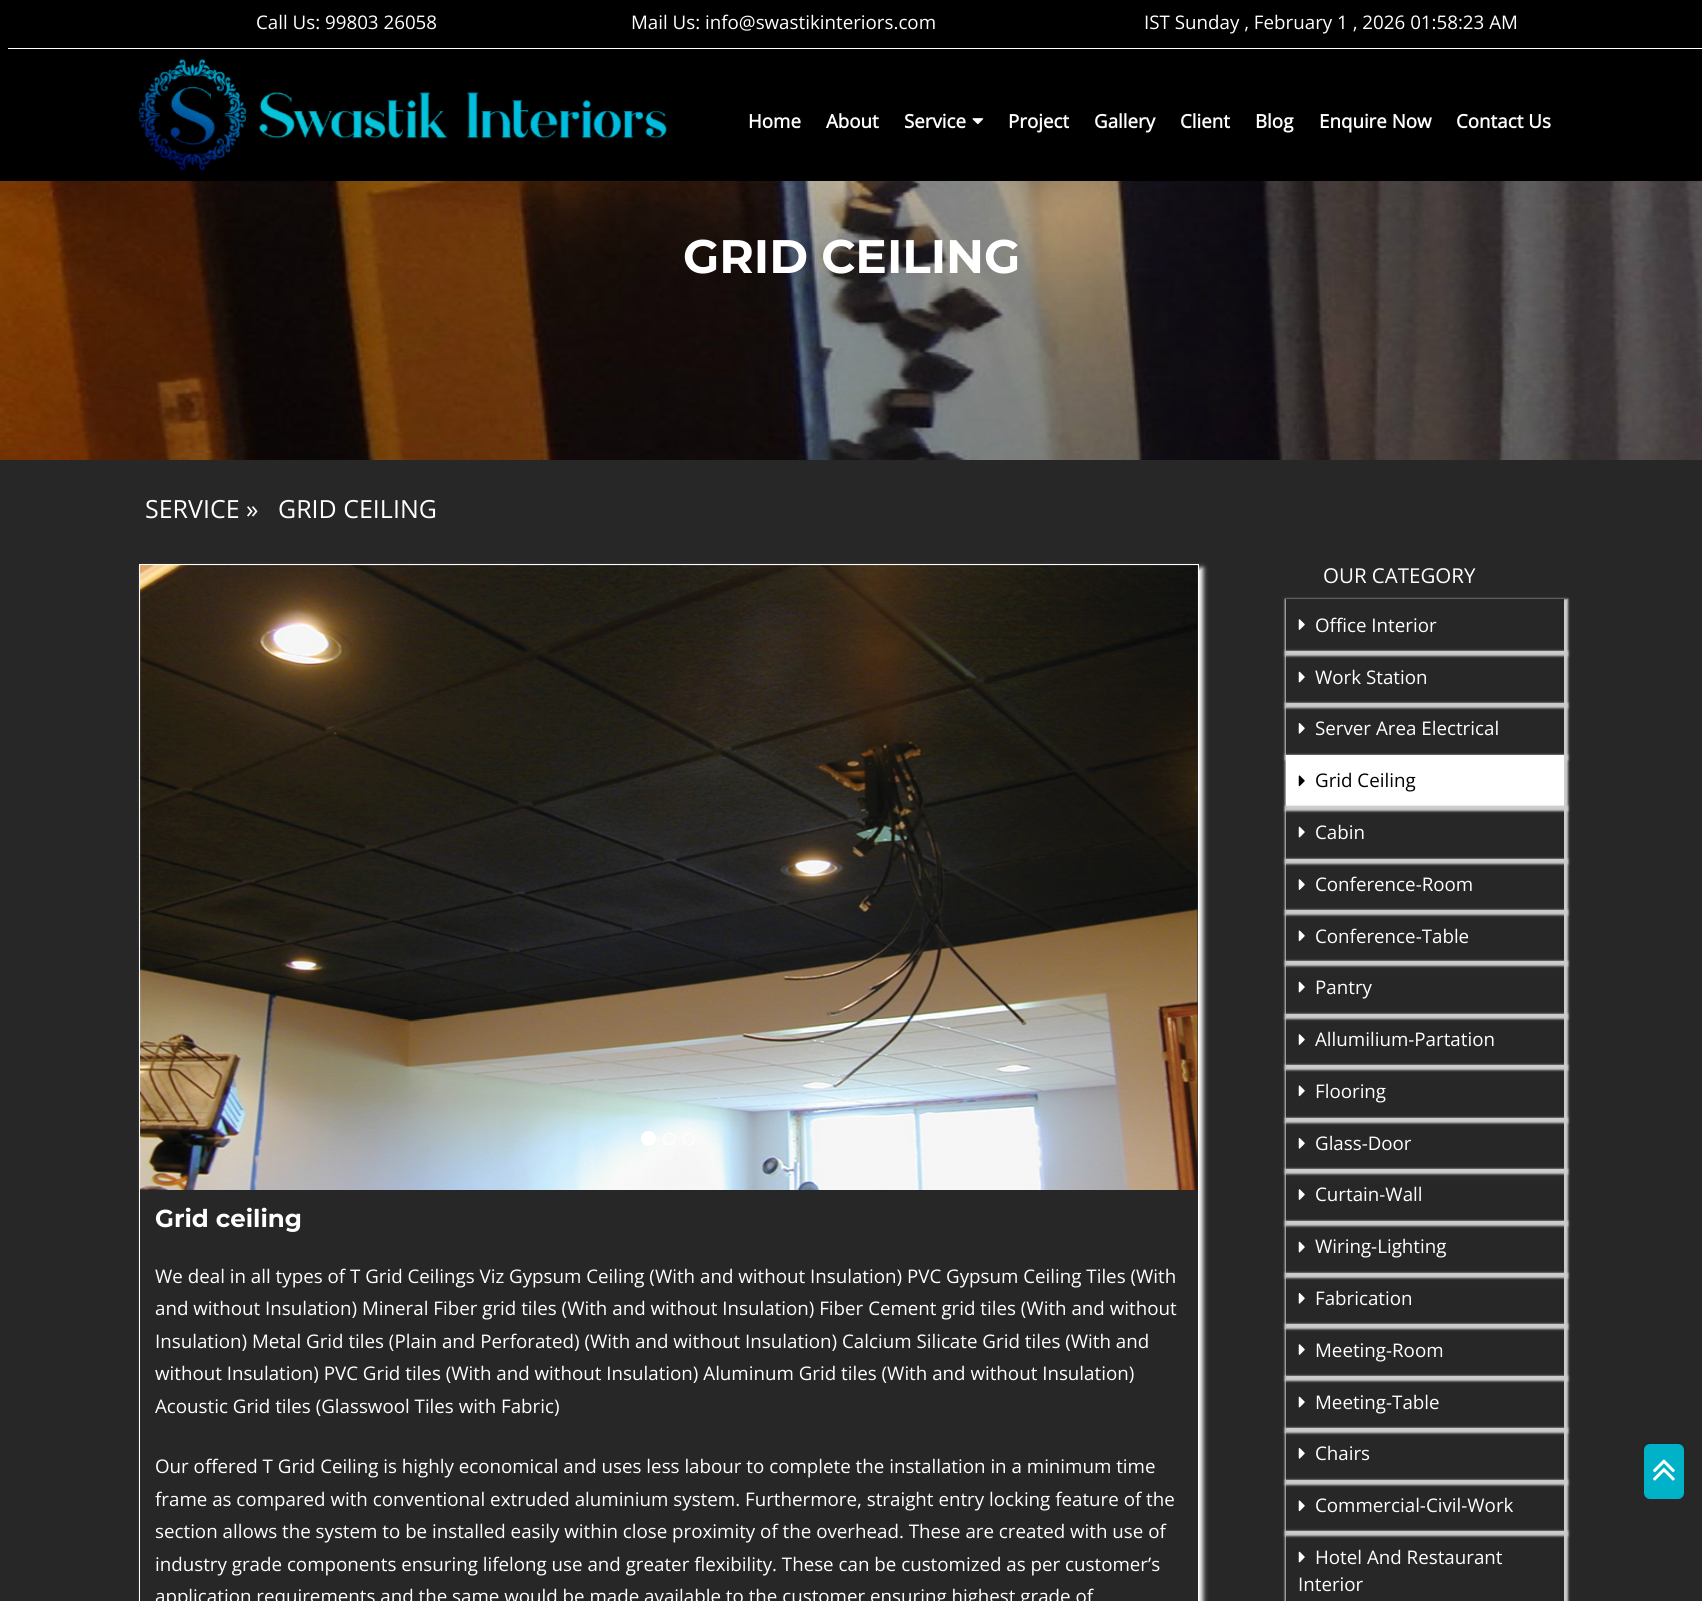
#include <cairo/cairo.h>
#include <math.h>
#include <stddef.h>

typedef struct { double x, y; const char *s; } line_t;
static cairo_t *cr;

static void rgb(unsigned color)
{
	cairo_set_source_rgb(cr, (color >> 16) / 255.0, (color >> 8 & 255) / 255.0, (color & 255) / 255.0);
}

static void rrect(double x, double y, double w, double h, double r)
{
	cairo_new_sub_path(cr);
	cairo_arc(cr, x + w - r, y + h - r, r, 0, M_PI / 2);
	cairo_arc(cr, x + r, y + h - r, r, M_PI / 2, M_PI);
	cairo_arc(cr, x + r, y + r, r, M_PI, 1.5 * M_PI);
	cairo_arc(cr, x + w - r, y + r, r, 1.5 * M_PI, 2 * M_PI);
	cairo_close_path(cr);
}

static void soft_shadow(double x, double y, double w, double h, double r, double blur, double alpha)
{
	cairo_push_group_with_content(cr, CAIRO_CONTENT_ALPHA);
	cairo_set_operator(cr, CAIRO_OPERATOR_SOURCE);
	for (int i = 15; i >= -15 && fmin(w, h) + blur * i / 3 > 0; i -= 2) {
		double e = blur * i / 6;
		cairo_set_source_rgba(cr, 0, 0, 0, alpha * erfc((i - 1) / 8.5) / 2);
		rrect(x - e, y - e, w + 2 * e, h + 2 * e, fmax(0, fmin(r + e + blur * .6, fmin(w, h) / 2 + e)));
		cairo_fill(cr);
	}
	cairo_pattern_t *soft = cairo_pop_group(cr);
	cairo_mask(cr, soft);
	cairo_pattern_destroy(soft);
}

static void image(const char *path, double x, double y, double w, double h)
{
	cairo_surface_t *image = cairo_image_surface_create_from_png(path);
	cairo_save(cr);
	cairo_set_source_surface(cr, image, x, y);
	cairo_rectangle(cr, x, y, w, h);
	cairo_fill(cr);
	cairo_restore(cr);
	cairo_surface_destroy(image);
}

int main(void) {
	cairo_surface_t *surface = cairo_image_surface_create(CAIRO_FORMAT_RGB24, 1702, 1601);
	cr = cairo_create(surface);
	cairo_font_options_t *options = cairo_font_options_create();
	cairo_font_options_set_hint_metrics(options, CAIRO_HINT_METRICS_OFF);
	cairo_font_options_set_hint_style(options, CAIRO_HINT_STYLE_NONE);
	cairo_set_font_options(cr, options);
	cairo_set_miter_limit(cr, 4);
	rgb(0x272727);
	cairo_paint(cr);
	rgb(0x000000);
	cairo_rectangle(cr, 0, 0, 1702, 181);
	cairo_fill(cr);
	rgb(0xffffff);
	cairo_rectangle(cr, 8, 48, 1694, 1);
	cairo_fill(cr);
	image("img/1.png", 972, 118, 12, 7);
	image("img/2.png", 139, 59, 528, 112);
	image("img/3.png", 0, 181, 1702, 279);
	cairo_save(cr);
	cairo_set_fill_rule(cr, CAIRO_FILL_RULE_EVEN_ODD);
	cairo_new_path(cr);
	cairo_move_to(cr, 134, 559);
	cairo_line_to(cr, 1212, 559);
	cairo_line_to(cr, 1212, 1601);
	cairo_line_to(cr, 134, 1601);
	cairo_close_path(cr);
	cairo_move_to(cr, 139, 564);
	cairo_line_to(cr, 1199, 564);
	cairo_line_to(cr, 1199, 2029);
	cairo_line_to(cr, 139, 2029);
	cairo_close_path(cr);
	cairo_clip(cr);
	rgb(0xffffff);
	soft_shadow(143, 568, 1060, 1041, 0, 2.5, 1);
	cairo_restore(cr);
	cairo_rectangle(cr, 139.5, 564.5, 1059, 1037);
	cairo_set_line_width(cr, 1);
	cairo_stroke(cr);
	image("img/4.png", 140, 565, 1058, 625);
	cairo_arc(cr, 648.5, 1138.5, 7, 0, 2 * M_PI);
	cairo_fill_preserve(cr);
	cairo_stroke(cr);
	cairo_arc(cr, 669, 1139, 5.5, 0, 2 * M_PI);
	cairo_stroke(cr);
	cairo_arc(cr, 689, 1139, 5.5, 0, 2 * M_PI);
	cairo_stroke(cr);
	cairo_save(cr);
	cairo_set_fill_rule(cr, CAIRO_FILL_RULE_EVEN_ODD);
	cairo_new_path(cr);
	cairo_move_to(cr, 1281, 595);
	cairo_line_to(cr, 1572, 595);
	cairo_line_to(cr, 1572, 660);
	cairo_line_to(cr, 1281, 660);
	cairo_close_path(cr);
	cairo_move_to(cr, 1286, 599);
	cairo_line_to(cr, 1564, 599);
	cairo_line_to(cr, 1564, 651);
	cairo_line_to(cr, 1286, 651);
	cairo_close_path(cr);
	cairo_clip(cr);
	rgb(0xcccccc);
	soft_shadow(1285, 599, 283, 57, 0, 1, 1);
	cairo_restore(cr);
	image("img/5.png", 1298, 619, 7, 11);
	cairo_save(cr);
	cairo_set_fill_rule(cr, CAIRO_FILL_RULE_EVEN_ODD);
	cairo_new_path(cr);
	cairo_move_to(cr, 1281, 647);
	cairo_line_to(cr, 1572, 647);
	cairo_line_to(cr, 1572, 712);
	cairo_line_to(cr, 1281, 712);
	cairo_close_path(cr);
	cairo_move_to(cr, 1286, 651);
	cairo_line_to(cr, 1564, 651);
	cairo_line_to(cr, 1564, 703);
	cairo_line_to(cr, 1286, 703);
	cairo_close_path(cr);
	cairo_clip(cr);
	rgb(0xcccccc);
	soft_shadow(1285, 651, 283, 57, 0, 1, 1);
	cairo_restore(cr);
	image("img/6.png", 1298, 671, 7, 12);
	cairo_save(cr);
	cairo_set_fill_rule(cr, CAIRO_FILL_RULE_EVEN_ODD);
	cairo_new_path(cr);
	cairo_move_to(cr, 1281, 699);
	cairo_line_to(cr, 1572, 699);
	cairo_line_to(cr, 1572, 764);
	cairo_line_to(cr, 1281, 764);
	cairo_close_path(cr);
	cairo_move_to(cr, 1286, 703);
	cairo_line_to(cr, 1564, 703);
	cairo_line_to(cr, 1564, 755);
	cairo_line_to(cr, 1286, 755);
	cairo_close_path(cr);
	cairo_clip(cr);
	rgb(0xcccccc);
	soft_shadow(1285, 703, 283, 57, 0, 1, 1);
	cairo_restore(cr);
	image("img/7.png", 1298, 723, 7, 11);
	rgb(0xcccccc);
	soft_shadow(1285, 755, 283, 56, 0, 1, 1);
	rgb(0xffffff);
	cairo_rectangle(cr, 1286, 755, 278, 51);
	cairo_fill(cr);
	image("img/8.png", 1298, 775, 7, 12);
	cairo_save(cr);
	cairo_set_fill_rule(cr, CAIRO_FILL_RULE_EVEN_ODD);
	cairo_new_path(cr);
	cairo_move_to(cr, 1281, 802);
	cairo_line_to(cr, 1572, 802);
	cairo_line_to(cr, 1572, 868);
	cairo_line_to(cr, 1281, 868);
	cairo_close_path(cr);
	cairo_move_to(cr, 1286, 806);
	cairo_line_to(cr, 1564, 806);
	cairo_line_to(cr, 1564, 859);
	cairo_line_to(cr, 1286, 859);
	cairo_close_path(cr);
	cairo_clip(cr);
	rgb(0xcccccc);
	soft_shadow(1285, 806, 283, 58, 0, 1, 1);
	cairo_restore(cr);
	image("img/6.png", 1298, 826, 7, 12);
	cairo_save(cr);
	cairo_set_fill_rule(cr, CAIRO_FILL_RULE_EVEN_ODD);
	cairo_new_path(cr);
	cairo_move_to(cr, 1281, 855);
	cairo_line_to(cr, 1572, 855);
	cairo_line_to(cr, 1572, 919);
	cairo_line_to(cr, 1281, 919);
	cairo_close_path(cr);
	cairo_move_to(cr, 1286, 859);
	cairo_line_to(cr, 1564, 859);
	cairo_line_to(cr, 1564, 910);
	cairo_line_to(cr, 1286, 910);
	cairo_close_path(cr);
	cairo_clip(cr);
	rgb(0xcccccc);
	soft_shadow(1285, 859, 283, 56, 0, 1, 1);
	cairo_restore(cr);
	image("img/5.png", 1298, 879, 7, 11);
	cairo_save(cr);
	cairo_set_fill_rule(cr, CAIRO_FILL_RULE_EVEN_ODD);
	cairo_new_path(cr);
	cairo_move_to(cr, 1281, 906);
	cairo_line_to(cr, 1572, 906);
	cairo_line_to(cr, 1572, 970);
	cairo_line_to(cr, 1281, 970);
	cairo_close_path(cr);
	cairo_move_to(cr, 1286, 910);
	cairo_line_to(cr, 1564, 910);
	cairo_line_to(cr, 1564, 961);
	cairo_line_to(cr, 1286, 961);
	cairo_close_path(cr);
	cairo_clip(cr);
	rgb(0xcccccc);
	soft_shadow(1285, 910, 283, 56, 0, 1, 1);
	cairo_restore(cr);
	image("img/9.png", 1298, 930, 7, 12);
	cairo_save(cr);
	cairo_set_fill_rule(cr, CAIRO_FILL_RULE_EVEN_ODD);
	cairo_new_path(cr);
	cairo_move_to(cr, 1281, 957);
	cairo_line_to(cr, 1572, 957);
	cairo_line_to(cr, 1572, 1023);
	cairo_line_to(cr, 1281, 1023);
	cairo_close_path(cr);
	cairo_move_to(cr, 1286, 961);
	cairo_line_to(cr, 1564, 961);
	cairo_line_to(cr, 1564, 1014);
	cairo_line_to(cr, 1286, 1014);
	cairo_close_path(cr);
	cairo_clip(cr);
	rgb(0xcccccc);
	soft_shadow(1285, 961, 283, 58, 0, 1, 1);
	cairo_restore(cr);
	image("img/6.png", 1298, 981, 7, 12);
	cairo_save(cr);
	cairo_set_fill_rule(cr, CAIRO_FILL_RULE_EVEN_ODD);
	cairo_new_path(cr);
	cairo_move_to(cr, 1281, 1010);
	cairo_line_to(cr, 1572, 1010);
	cairo_line_to(cr, 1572, 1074);
	cairo_line_to(cr, 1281, 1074);
	cairo_close_path(cr);
	cairo_move_to(cr, 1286, 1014);
	cairo_line_to(cr, 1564, 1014);
	cairo_line_to(cr, 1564, 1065);
	cairo_line_to(cr, 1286, 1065);
	cairo_close_path(cr);
	cairo_clip(cr);
	rgb(0xcccccc);
	soft_shadow(1285, 1014, 283, 56, 0, 1, 1);
	cairo_restore(cr);
	image("img/5.png", 1298, 1034, 7, 11);
	cairo_save(cr);
	cairo_set_fill_rule(cr, CAIRO_FILL_RULE_EVEN_ODD);
	cairo_new_path(cr);
	cairo_move_to(cr, 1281, 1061);
	cairo_line_to(cr, 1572, 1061);
	cairo_line_to(cr, 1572, 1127);
	cairo_line_to(cr, 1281, 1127);
	cairo_close_path(cr);
	cairo_move_to(cr, 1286, 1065);
	cairo_line_to(cr, 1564, 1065);
	cairo_line_to(cr, 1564, 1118);
	cairo_line_to(cr, 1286, 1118);
	cairo_close_path(cr);
	cairo_clip(cr);
	rgb(0xcccccc);
	soft_shadow(1285, 1065, 283, 58, 0, 1, 1);
	cairo_restore(cr);
	image("img/9.png", 1298, 1085, 7, 12);
	cairo_save(cr);
	cairo_set_fill_rule(cr, CAIRO_FILL_RULE_EVEN_ODD);
	cairo_new_path(cr);
	cairo_move_to(cr, 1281, 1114);
	cairo_line_to(cr, 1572, 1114);
	cairo_line_to(cr, 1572, 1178);
	cairo_line_to(cr, 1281, 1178);
	cairo_close_path(cr);
	cairo_move_to(cr, 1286, 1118);
	cairo_line_to(cr, 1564, 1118);
	cairo_line_to(cr, 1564, 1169);
	cairo_line_to(cr, 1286, 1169);
	cairo_close_path(cr);
	cairo_clip(cr);
	rgb(0xcccccc);
	soft_shadow(1285, 1118, 283, 56, 0, 1, 1);
	cairo_restore(cr);
	image("img/7.png", 1298, 1138, 7, 11);
	cairo_save(cr);
	cairo_set_fill_rule(cr, CAIRO_FILL_RULE_EVEN_ODD);
	cairo_new_path(cr);
	cairo_move_to(cr, 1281, 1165);
	cairo_line_to(cr, 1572, 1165);
	cairo_line_to(cr, 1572, 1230);
	cairo_line_to(cr, 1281, 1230);
	cairo_close_path(cr);
	cairo_move_to(cr, 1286, 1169);
	cairo_line_to(cr, 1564, 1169);
	cairo_line_to(cr, 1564, 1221);
	cairo_line_to(cr, 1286, 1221);
	cairo_close_path(cr);
	cairo_clip(cr);
	rgb(0xcccccc);
	soft_shadow(1285, 1169, 283, 57, 0, 1, 1);
	cairo_restore(cr);
	image("img/5.png", 1298, 1189, 7, 11);
	cairo_save(cr);
	cairo_set_fill_rule(cr, CAIRO_FILL_RULE_EVEN_ODD);
	cairo_new_path(cr);
	cairo_move_to(cr, 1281, 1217);
	cairo_line_to(cr, 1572, 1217);
	cairo_line_to(cr, 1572, 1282);
	cairo_line_to(cr, 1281, 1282);
	cairo_close_path(cr);
	cairo_move_to(cr, 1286, 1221);
	cairo_line_to(cr, 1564, 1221);
	cairo_line_to(cr, 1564, 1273);
	cairo_line_to(cr, 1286, 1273);
	cairo_close_path(cr);
	cairo_clip(cr);
	rgb(0xcccccc);
	soft_shadow(1285, 1221, 283, 57, 0, 1, 1);
	cairo_restore(cr);
	image("img/6.png", 1298, 1241, 7, 12);
	cairo_save(cr);
	cairo_set_fill_rule(cr, CAIRO_FILL_RULE_EVEN_ODD);
	cairo_new_path(cr);
	cairo_move_to(cr, 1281, 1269);
	cairo_line_to(cr, 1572, 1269);
	cairo_line_to(cr, 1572, 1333);
	cairo_line_to(cr, 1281, 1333);
	cairo_close_path(cr);
	cairo_move_to(cr, 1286, 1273);
	cairo_line_to(cr, 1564, 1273);
	cairo_line_to(cr, 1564, 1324);
	cairo_line_to(cr, 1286, 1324);
	cairo_close_path(cr);
	cairo_clip(cr);
	rgb(0xcccccc);
	soft_shadow(1285, 1273, 283, 56, 0, 1, 1);
	cairo_restore(cr);
	image("img/7.png", 1298, 1293, 7, 11);
	cairo_save(cr);
	cairo_set_fill_rule(cr, CAIRO_FILL_RULE_EVEN_ODD);
	cairo_new_path(cr);
	cairo_move_to(cr, 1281, 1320);
	cairo_line_to(cr, 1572, 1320);
	cairo_line_to(cr, 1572, 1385);
	cairo_line_to(cr, 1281, 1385);
	cairo_close_path(cr);
	cairo_move_to(cr, 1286, 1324);
	cairo_line_to(cr, 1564, 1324);
	cairo_line_to(cr, 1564, 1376);
	cairo_line_to(cr, 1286, 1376);
	cairo_close_path(cr);
	cairo_clip(cr);
	rgb(0xcccccc);
	soft_shadow(1285, 1324, 283, 57, 0, 1, 1);
	cairo_restore(cr);
	image("img/5.png", 1298, 1344, 7, 11);
	cairo_save(cr);
	cairo_set_fill_rule(cr, CAIRO_FILL_RULE_EVEN_ODD);
	cairo_new_path(cr);
	cairo_move_to(cr, 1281, 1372);
	cairo_line_to(cr, 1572, 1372);
	cairo_line_to(cr, 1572, 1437);
	cairo_line_to(cr, 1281, 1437);
	cairo_close_path(cr);
	cairo_move_to(cr, 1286, 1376);
	cairo_line_to(cr, 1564, 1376);
	cairo_line_to(cr, 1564, 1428);
	cairo_line_to(cr, 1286, 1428);
	cairo_close_path(cr);
	cairo_clip(cr);
	rgb(0xcccccc);
	soft_shadow(1285, 1376, 283, 57, 0, 1, 1);
	cairo_restore(cr);
	image("img/6.png", 1298, 1396, 7, 12);
	cairo_save(cr);
	cairo_set_fill_rule(cr, CAIRO_FILL_RULE_EVEN_ODD);
	cairo_new_path(cr);
	cairo_move_to(cr, 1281, 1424);
	cairo_line_to(cr, 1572, 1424);
	cairo_line_to(cr, 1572, 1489);
	cairo_line_to(cr, 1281, 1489);
	cairo_close_path(cr);
	cairo_move_to(cr, 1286, 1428);
	cairo_line_to(cr, 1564, 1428);
	cairo_line_to(cr, 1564, 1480);
	cairo_line_to(cr, 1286, 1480);
	cairo_close_path(cr);
	cairo_clip(cr);
	rgb(0xcccccc);
	soft_shadow(1285, 1428, 283, 57, 0, 1, 1);
	cairo_restore(cr);
	image("img/7.png", 1298, 1448, 7, 11);
	cairo_save(cr);
	cairo_set_fill_rule(cr, CAIRO_FILL_RULE_EVEN_ODD);
	cairo_new_path(cr);
	cairo_move_to(cr, 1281, 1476);
	cairo_line_to(cr, 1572, 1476);
	cairo_line_to(cr, 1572, 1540);
	cairo_line_to(cr, 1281, 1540);
	cairo_close_path(cr);
	cairo_move_to(cr, 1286, 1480);
	cairo_line_to(cr, 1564, 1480);
	cairo_line_to(cr, 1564, 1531);
	cairo_line_to(cr, 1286, 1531);
	cairo_close_path(cr);
	cairo_clip(cr);
	rgb(0xcccccc);
	soft_shadow(1285, 1480, 283, 56, 0, 1, 1);
	cairo_restore(cr);
	image("img/9.png", 1298, 1500, 7, 12);
	cairo_save(cr);
	cairo_set_fill_rule(cr, CAIRO_FILL_RULE_EVEN_ODD);
	cairo_new_path(cr);
	cairo_move_to(cr, 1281, 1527);
	cairo_line_to(cr, 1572, 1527);
	cairo_line_to(cr, 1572, 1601);
	cairo_line_to(cr, 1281, 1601);
	cairo_close_path(cr);
	cairo_move_to(cr, 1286, 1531);
	cairo_line_to(cr, 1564, 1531);
	cairo_line_to(cr, 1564, 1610);
	cairo_line_to(cr, 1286, 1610);
	cairo_close_path(cr);
	cairo_clip(cr);
	rgb(0xcccccc);
	soft_shadow(1285, 1531, 283, 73, 0, 1, 1);
	cairo_restore(cr);
	image("img/6.png", 1298, 1551, 7, 12);
	rgb(0x00b2c8);
	rrect(1644, 1444, 40, 55, 6);
	cairo_fill(cr);
	image("img/10.png", 1653, 1459, 22, 22);
	cairo_select_font_face(cr, "Open Sans", CAIRO_FONT_SLANT_NORMAL, CAIRO_FONT_WEIGHT_NORMAL);
	cairo_set_font_size(cr, 18.75);
	rgb(0xffffff);
	{
		static const line_t items[] = {
			{256, 29, "Call Us: 99803 26058"},
			{631, 29, "Mail Us: info@swastikinteriors.com"},
			{1144, 29, "IST Sunday , February 1 , 2026 01:58:23 AM"},
		};
		for (size_t i = 0; i < sizeof items / sizeof *items; i++) {
			cairo_move_to(cr, items[i].x, items[i].y);
			cairo_show_text(cr, items[i].s);
		}
	}
	cairo_select_font_face(cr, "Open Sans", CAIRO_FONT_SLANT_NORMAL, CAIRO_FONT_WEIGHT_BOLD);
	{
		static const line_t items[] = {
			{748, 128, "Home"},
			{826, 128, "About"},
			{904, 128, "Service"},
			{1008, 128, "Project"},
			{1094, 128, "Gallery"},
			{1180, 128, "Client"},
			{1255, 128, "Blog"},
			{1319, 128, "Enquire Now"},
			{1456, 128, "Contact Us"},
		};
		for (size_t i = 0; i < sizeof items / sizeof *items; i++) {
			cairo_move_to(cr, items[i].x, items[i].y);
			cairo_show_text(cr, items[i].s);
		}
	}
	cairo_select_font_face(cr, "Montserrat", CAIRO_FONT_SLANT_NORMAL, CAIRO_FONT_WEIGHT_BOLD);
	cairo_set_font_size(cr, 47);
	cairo_move_to(cr, 683, 273);
	cairo_show_text(cr, "GRID CEILING");
	cairo_select_font_face(cr, "Open Sans", CAIRO_FONT_SLANT_NORMAL, CAIRO_FONT_WEIGHT_NORMAL);
	cairo_set_font_size(cr, 25);
	cairo_move_to(cr, 145, 518);
	cairo_show_text(cr, "SERVICE »");
	cairo_move_to(cr, 278, 518);
	cairo_show_text(cr, "GRID CEILING");
	cairo_select_font_face(cr, "Montserrat", CAIRO_FONT_SLANT_NORMAL, CAIRO_FONT_WEIGHT_BOLD);
	cairo_set_font_size(cr, 24.5);
	cairo_move_to(cr, 155, 1227);
	cairo_show_text(cr, "Grid ceiling");
	cairo_select_font_face(cr, "Open Sans", CAIRO_FONT_SLANT_NORMAL, CAIRO_FONT_WEIGHT_NORMAL);
	cairo_set_font_size(cr, 18.75);
	{
		static const line_t items[] = {
			{155, 1283, "We deal in all types of T Grid Ceilings Viz Gypsum Ceiling (With and without Insulation) PVC Gypsum Ceiling Tiles (With"},
			{155, 1315, "and without Insulation) Mineral Fiber grid tiles (With and without Insulation) Fiber Cement grid tiles (With and without"},
			{155, 1348, "Insulation) Metal Grid tiles (Plain and Perforated) (With and without Insulation) Calcium Silicate Grid tiles (With and"},
			{155, 1380, "without Insulation) PVC Grid tiles (With and without Insulation) Aluminum Grid tiles (With and without Insulation)"},
			{155, 1413, "Acoustic Grid tiles (Glasswool Tiles with Fabric)"},
			{155, 1473, "Our offered T Grid Ceiling is highly economical and uses less labour to complete the installation in a minimum time"},
			{155, 1506, "frame as compared with conventional extruded aluminium system. Furthermore, straight entry locking feature of the"},
			{155, 1538, "section allows the system to be installed easily within close proximity of the overhead. These are created with use of"},
			{155, 1571, "industry grade components ensuring lifelong use and greater flexibility. These can be customized as per customer’s"},
			{155, 1603, "application requirements and the same would be made available to the customer ensuring highest grade of"},
		};
		for (size_t i = 0; i < sizeof items / sizeof *items; i++) {
			cairo_move_to(cr, items[i].x, items[i].y);
			cairo_show_text(cr, items[i].s);
		}
	}
	cairo_set_font_size(cr, 20.5);
	cairo_move_to(cr, 1323, 583);
	cairo_show_text(cr, "OUR CATEGORY");
	cairo_set_font_size(cr, 18.75);
	{
		static const line_t items[] = {
			{1315, 632, "Office Interior"},
			{1315, 684, "Work Station"},
			{1315, 735, "Server Area Electrical"},
		};
		for (size_t i = 0; i < sizeof items / sizeof *items; i++) {
			cairo_move_to(cr, items[i].x, items[i].y);
			cairo_show_text(cr, items[i].s);
		}
	}
	rgb(0x000000);
	cairo_move_to(cr, 1315, 787);
	cairo_show_text(cr, "Grid Ceiling");
	rgb(0xffffff);
	{
		static const line_t items[] = {
			{1315, 839, "Cabin"},
			{1315, 891, "Conference-Room"},
			{1315, 943, "Conference-Table"},
			{1315, 994, "Pantry"},
			{1315, 1046, "Allumilium-Partation"},
			{1315, 1098, "Flooring"},
			{1315, 1150, "Glass-Door"},
			{1315, 1201, "Curtain-Wall"},
			{1315, 1253, "Wiring-Lighting"},
			{1315, 1305, "Fabrication"},
			{1315, 1357, "Meeting-Room"},
			{1315, 1409, "Meeting-Table"},
			{1315, 1460, "Chairs"},
			{1315, 1512, "Commercial-Civil-Work"},
			{1315, 1564, "Hotel And Restaurant"},
			{1298, 1591, "Interior"},
		};
		for (size_t i = 0; i < sizeof items / sizeof *items; i++) {
			cairo_move_to(cr, items[i].x, items[i].y);
			cairo_show_text(cr, items[i].s);
		}
	}
	cairo_surface_write_to_png(surface, "page.png");
	cairo_font_options_destroy(options);
	cairo_destroy(cr);
	cairo_surface_destroy(surface);
	return 0;
}
